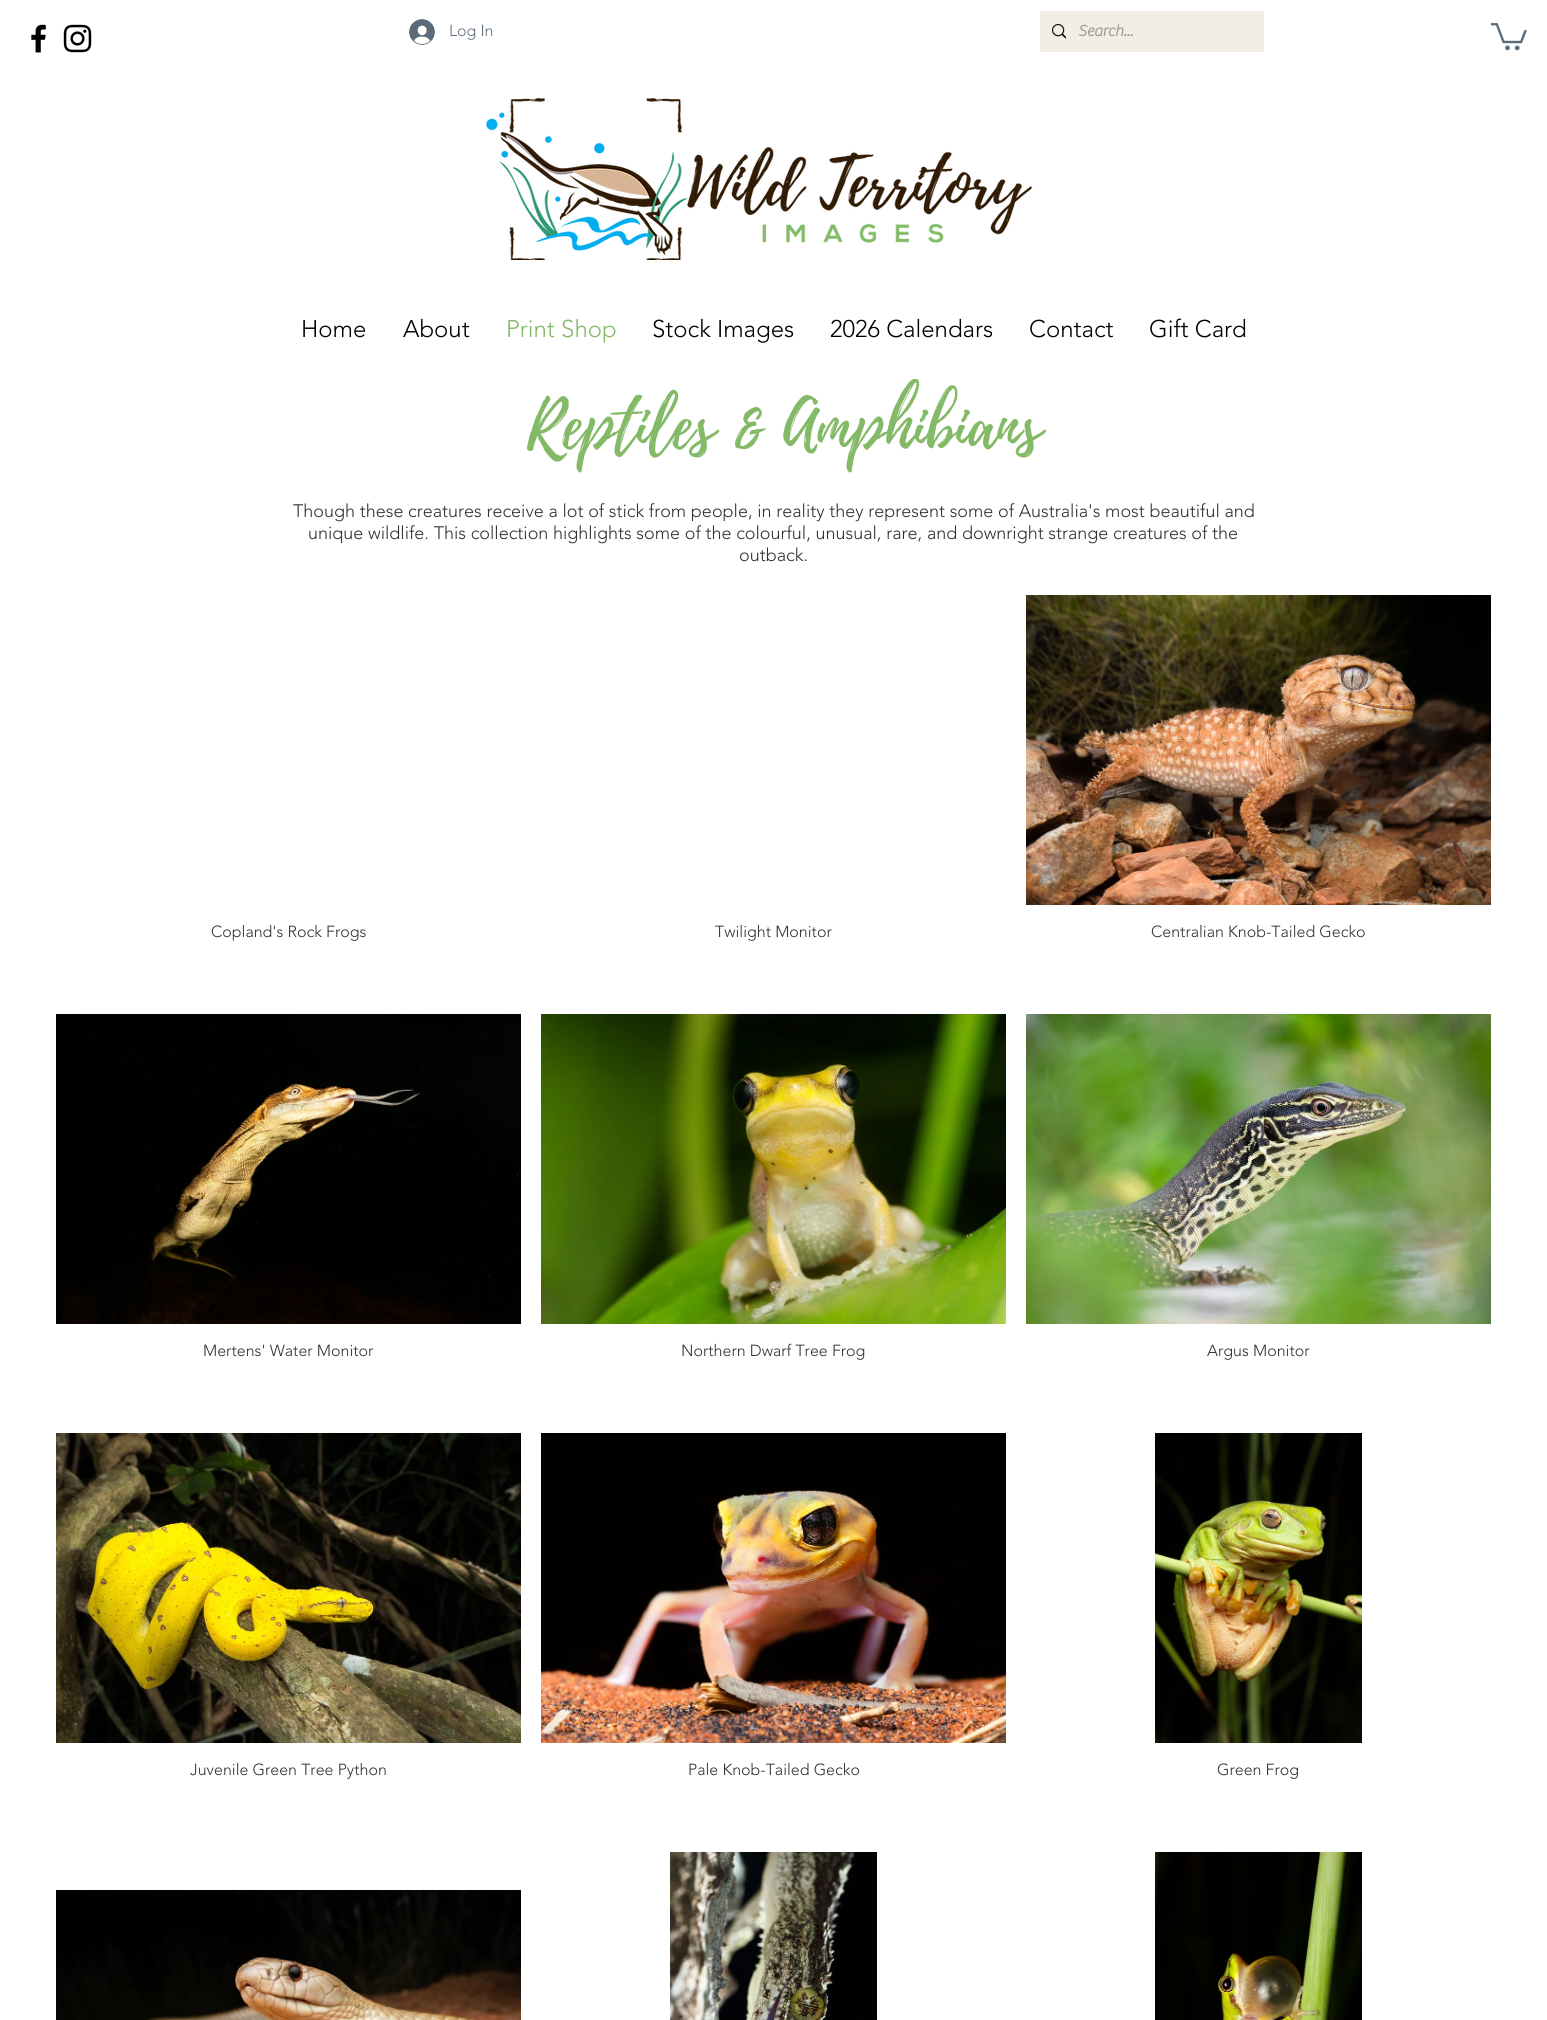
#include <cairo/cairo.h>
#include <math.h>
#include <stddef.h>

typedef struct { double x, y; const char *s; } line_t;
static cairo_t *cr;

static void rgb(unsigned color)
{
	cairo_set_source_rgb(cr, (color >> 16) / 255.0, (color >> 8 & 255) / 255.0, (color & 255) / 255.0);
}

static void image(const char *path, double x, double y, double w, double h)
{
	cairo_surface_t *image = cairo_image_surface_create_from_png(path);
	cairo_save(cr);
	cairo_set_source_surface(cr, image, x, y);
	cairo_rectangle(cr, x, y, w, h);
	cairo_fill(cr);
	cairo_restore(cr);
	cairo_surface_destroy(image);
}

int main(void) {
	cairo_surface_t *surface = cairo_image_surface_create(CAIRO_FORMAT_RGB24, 1547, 2020);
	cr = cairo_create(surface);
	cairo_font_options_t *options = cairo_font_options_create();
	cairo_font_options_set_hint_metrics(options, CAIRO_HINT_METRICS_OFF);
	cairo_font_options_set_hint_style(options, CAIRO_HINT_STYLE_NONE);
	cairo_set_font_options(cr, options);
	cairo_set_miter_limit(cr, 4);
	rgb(0xffffff);
	cairo_paint(cr);
	image("img/1.png", 31, 24, 15, 29);
	image("img/2.png", 63, 24, 29, 29);
	image("img/3.png", 409, 19, 26, 26);
	rgb(0xf2eee4);
	cairo_rectangle(cr, 1040, 11, 224, 41);
	cairo_fill(cr);
	image("img/4.png", 1052, 24, 14, 15);
	image("img/5.png", 485, 98, 547, 162);
	image("img/6.png", 1491, 23, 36, 28);
	image("img/7.png", 1026, 595, 465, 310);
	image("img/8.png", 56, 1014, 465, 310);
	image("img/9.png", 541, 1014, 465, 310);
	image("img/10.png", 1026, 1014, 465, 310);
	image("img/11.png", 56, 1433, 465, 310);
	image("img/12.png", 541, 1433, 465, 310);
	image("img/13.png", 1155, 1433, 207, 310);
	image("img/14.png", 56, 1890, 465, 130);
	image("img/15.png", 670, 1852, 207, 168);
	image("img/16.png", 1155, 1852, 207, 168);
	cairo_select_font_face(cr, "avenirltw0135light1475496 Light", CAIRO_FONT_SLANT_NORMAL, CAIRO_FONT_WEIGHT_NORMAL);
	cairo_set_font_size(cr, 16);
	rgb(0x5c6b7a);
	cairo_move_to(cr, 449, 36);
	cairo_show_text(cr, "Log In");
	cairo_select_font_face(cr, "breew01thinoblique", CAIRO_FONT_SLANT_NORMAL, CAIRO_FONT_WEIGHT_BOLD);
	rgb(0x999999);
	cairo_move_to(cr, 1078, 36);
	cairo_show_text(cr, "Search...");
	cairo_select_font_face(cr, "avenirltw0135light1475496 Light", CAIRO_FONT_SLANT_NORMAL, CAIRO_FONT_WEIGHT_NORMAL);
	cairo_set_font_size(cr, 24);
	rgb(0x000000);
	cairo_move_to(cr, 301, 337);
	cairo_show_text(cr, "Home");
	cairo_move_to(cr, 403, 337);
	cairo_show_text(cr, "About");
	rgb(0x83b967);
	cairo_move_to(cr, 506, 337);
	cairo_show_text(cr, "Print Shop");
	rgb(0x000000);
	{
		static const line_t items[] = {
			{652, 337, "Stock Images"},
			{830, 337, "2026 Calendars"},
			{1029, 337, "Contact"},
			{1149, 337, "Gift Card"},
		};
		for (size_t i = 0; i < sizeof items / sizeof *items; i++) {
			cairo_move_to(cr, items[i].x, items[i].y);
			cairo_show_text(cr, items[i].s);
		}
	}
	cairo_select_font_face(cr, "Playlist", CAIRO_FONT_SLANT_NORMAL, CAIRO_FONT_WEIGHT_NORMAL);
	cairo_set_font_size(cr, 66);
	rgb(0x83b967);
	cairo_move_to(cr, 527, 446);
	cairo_show_text(cr, "Reptiles & Amphibians");
	rgb(0xffffff);
	cairo_rectangle(cr, 914, 378, 3, 1);
	cairo_fill(cr);
	cairo_select_font_face(cr, "avenirltw0135light1475496 Light", CAIRO_FONT_SLANT_NORMAL, CAIRO_FONT_WEIGHT_NORMAL);
	cairo_set_font_size(cr, 18);
	rgb(0x303131);
	{
		static const line_t items[] = {
			{293, 517, "Though these creatures receive a lot of stick from people, in reality they represent some of Australia's most beautiful and"},
			{308, 539, "unique wildlife. This collection highlights some of the colourful, unusual, rare, and downright strange creatures of the"},
			{739, 561, "outback."},
		};
		for (size_t i = 0; i < sizeof items / sizeof *items; i++) {
			cairo_move_to(cr, items[i].x, items[i].y);
			cairo_show_text(cr, items[i].s);
		}
	}
	cairo_set_font_size(cr, 16);
	{
		static const line_t items[] = {
			{211, 937, "Copland's Rock Frogs"},
			{715, 937, "Twilight Monitor"},
			{1151, 937, "Centralian Knob-Tailed Gecko"},
			{203, 1356, "Mertens' Water Monitor"},
			{681, 1356, "Northern Dwarf Tree Frog"},
			{1207, 1356, "Argus Monitor"},
			{190, 1775, "Juvenile Green Tree Python"},
			{688, 1775, "Pale Knob-Tailed Gecko"},
			{1217, 1775, "Green Frog"},
		};
		for (size_t i = 0; i < sizeof items / sizeof *items; i++) {
			cairo_move_to(cr, items[i].x, items[i].y);
			cairo_show_text(cr, items[i].s);
		}
	}
	cairo_surface_write_to_png(surface, "page.png");
	cairo_font_options_destroy(options);
	cairo_destroy(cr);
	cairo_surface_destroy(surface);
	return 0;
}
